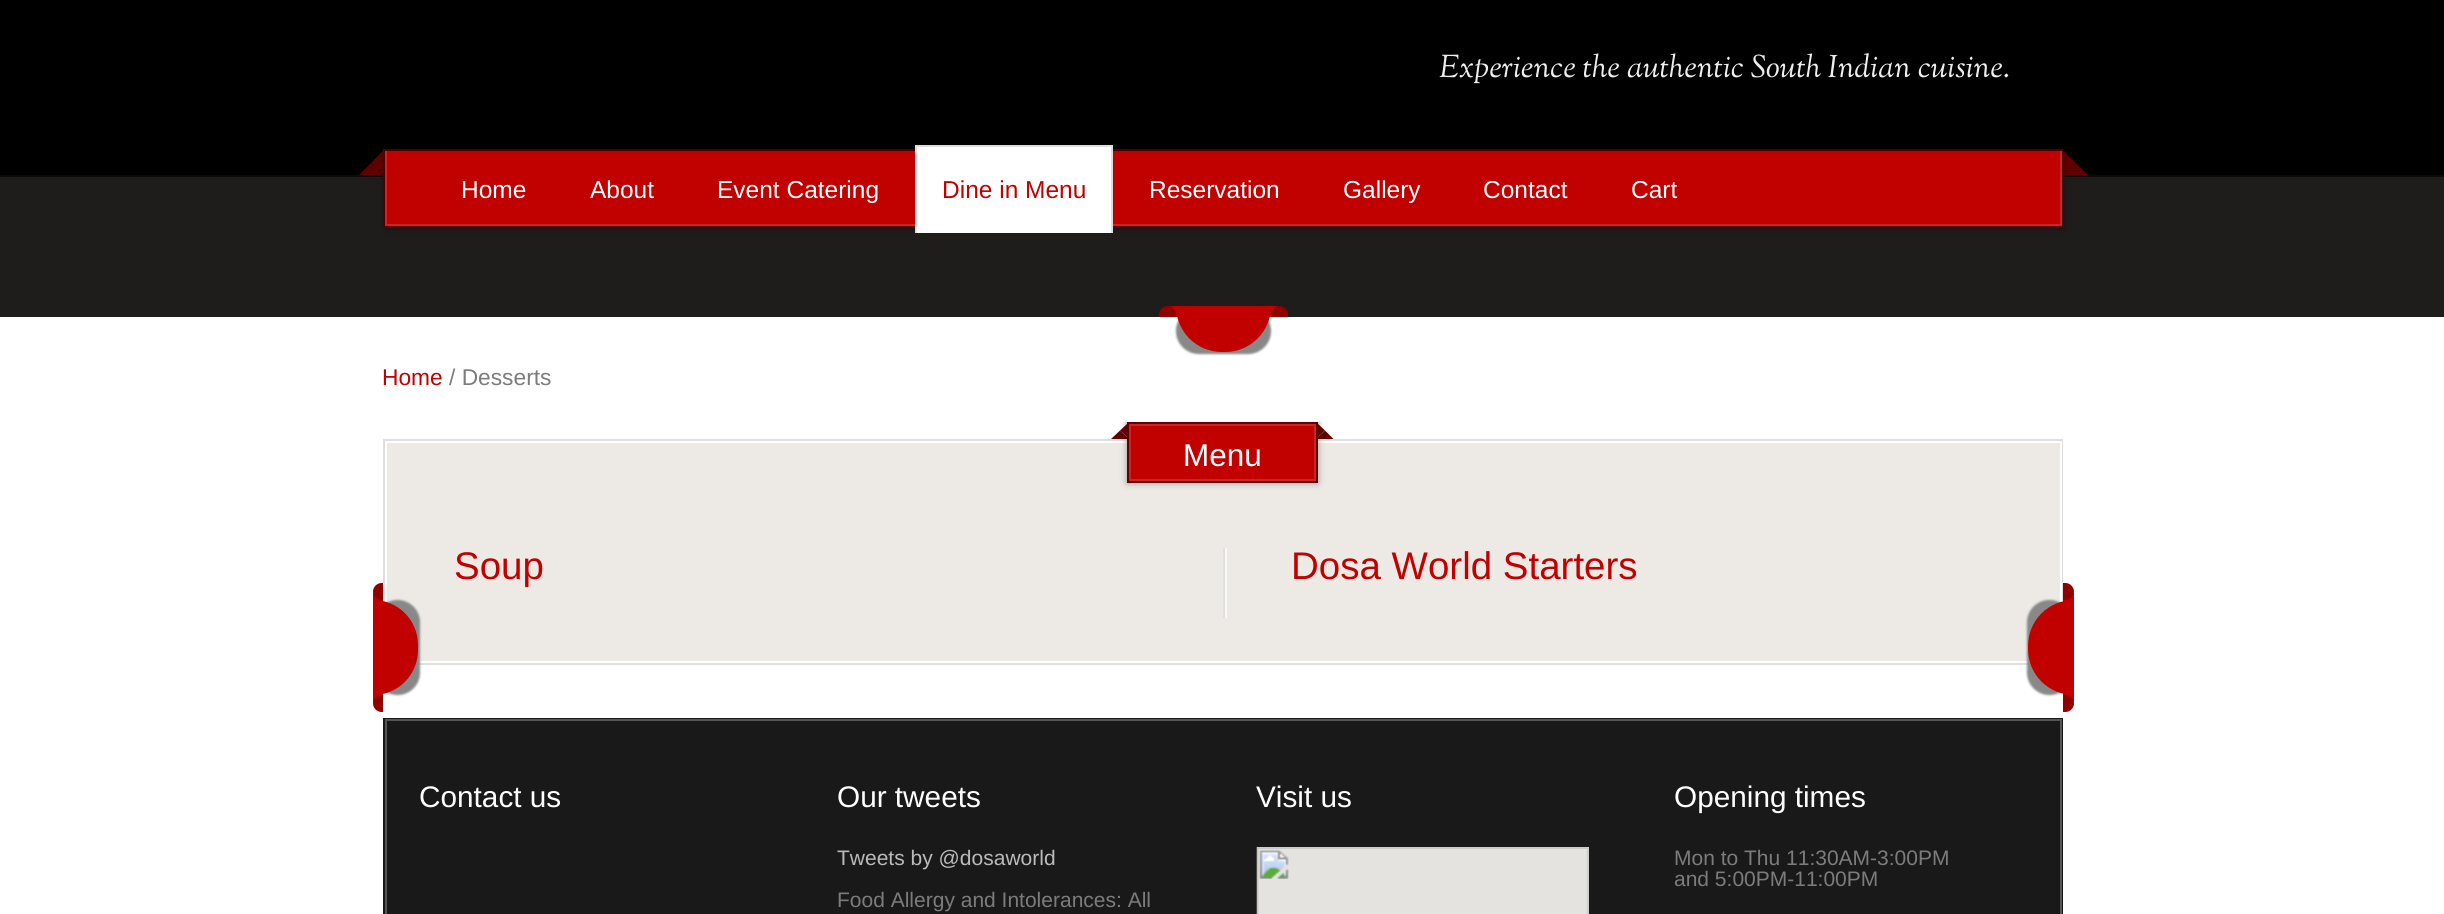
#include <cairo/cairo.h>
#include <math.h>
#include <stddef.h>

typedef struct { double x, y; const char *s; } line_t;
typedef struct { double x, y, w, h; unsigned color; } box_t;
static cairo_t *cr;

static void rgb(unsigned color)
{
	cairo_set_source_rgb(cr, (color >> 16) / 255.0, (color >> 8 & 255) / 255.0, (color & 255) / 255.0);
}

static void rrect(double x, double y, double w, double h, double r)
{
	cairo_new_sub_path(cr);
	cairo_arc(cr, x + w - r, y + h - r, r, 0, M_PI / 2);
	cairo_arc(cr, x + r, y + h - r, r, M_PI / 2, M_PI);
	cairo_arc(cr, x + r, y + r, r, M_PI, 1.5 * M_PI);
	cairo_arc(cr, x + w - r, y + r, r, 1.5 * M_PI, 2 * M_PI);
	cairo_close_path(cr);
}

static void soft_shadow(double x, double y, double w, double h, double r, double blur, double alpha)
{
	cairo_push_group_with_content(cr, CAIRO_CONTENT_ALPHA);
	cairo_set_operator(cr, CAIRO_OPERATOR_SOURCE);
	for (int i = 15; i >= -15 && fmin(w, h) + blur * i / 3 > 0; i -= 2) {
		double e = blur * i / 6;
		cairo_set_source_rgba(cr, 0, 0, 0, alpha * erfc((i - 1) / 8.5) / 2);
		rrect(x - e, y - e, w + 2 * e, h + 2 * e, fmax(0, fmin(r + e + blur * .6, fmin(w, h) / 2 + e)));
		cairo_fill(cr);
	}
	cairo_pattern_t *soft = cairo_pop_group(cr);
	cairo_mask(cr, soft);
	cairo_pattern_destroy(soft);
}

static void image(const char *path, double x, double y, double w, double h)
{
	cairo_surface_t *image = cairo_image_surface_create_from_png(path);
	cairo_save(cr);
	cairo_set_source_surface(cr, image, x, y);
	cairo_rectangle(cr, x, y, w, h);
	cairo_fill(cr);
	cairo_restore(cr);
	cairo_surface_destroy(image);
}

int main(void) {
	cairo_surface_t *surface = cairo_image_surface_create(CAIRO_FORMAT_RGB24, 2444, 914);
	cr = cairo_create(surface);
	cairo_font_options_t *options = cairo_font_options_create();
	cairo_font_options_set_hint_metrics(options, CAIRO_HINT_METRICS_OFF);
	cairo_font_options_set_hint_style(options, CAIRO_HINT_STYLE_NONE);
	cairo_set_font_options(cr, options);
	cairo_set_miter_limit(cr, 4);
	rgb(0xffffff);
	cairo_paint(cr);
	{
		static const box_t items[] = {
			{0, 0, 2444, 175, 0x000000},
			{0, 177, 2444, 140, 0x1f1d1c},
			{0, 175, 2444, 2, 0x0d0b08},
		};
		for (size_t i = 0; i < sizeof items / sizeof *items; i++) {
			rgb(items[i].color);
			cairo_rectangle(cr, items[i].x, items[i].y, items[i].w, items[i].h);
			cairo_fill(cr);
		}
	}
	rgb(0x610000);
	cairo_new_path(cr);
	cairo_move_to(cr, 383, 150.5);
	cairo_line_to(cr, 383, 175);
	cairo_line_to(cr, 371, 163);
	cairo_close_path(cr);
	cairo_fill(cr);
	cairo_new_path(cr);
	cairo_move_to(cr, 383, 175);
	cairo_line_to(cr, 359, 175);
	cairo_line_to(cr, 371, 163);
	cairo_close_path(cr);
	cairo_fill(cr);
	cairo_new_path(cr);
	cairo_move_to(cr, 2088, 175);
	cairo_line_to(cr, 2063, 175);
	cairo_line_to(cr, 2075.5, 163);
	cairo_close_path(cr);
	cairo_fill(cr);
	cairo_new_path(cr);
	cairo_move_to(cr, 2063, 175);
	cairo_line_to(cr, 2063, 150.5);
	cairo_line_to(cr, 2075.5, 163);
	cairo_close_path(cr);
	cairo_fill(cr);
	rgb(0xc10000);
	cairo_rectangle(cr, 387, 151, 1673, 73);
	cairo_fill(cr);
	cairo_rectangle(cr, 384, 150, 1678, 77);
	rgb(0x610000);
	cairo_stroke(cr);
	{
		static const box_t items[] = {
			{2060, 151, 2, 75, 0xca2626},
			{385, 224, 1677, 2, 0xca2626},
			{385, 151, 2, 75, 0xca2626},
		};
		for (size_t i = 0; i < sizeof items / sizeof *items; i++) {
			rgb(items[i].color);
			cairo_rectangle(cr, items[i].x, items[i].y, items[i].w, items[i].h);
			cairo_fill(cr);
		}
	}
	cairo_save(cr);
	cairo_set_fill_rule(cr, CAIRO_FILL_RULE_EVEN_ODD);
	cairo_new_path(cr);
	cairo_move_to(cr, 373, 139);
	cairo_line_to(cr, 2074, 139);
	cairo_line_to(cr, 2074, 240);
	cairo_line_to(cr, 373, 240);
	cairo_close_path(cr);
	cairo_move_to(cr, 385, 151);
	cairo_line_to(cr, 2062, 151);
	cairo_line_to(cr, 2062, 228);
	cairo_line_to(cr, 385, 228);
	cairo_close_path(cr);
	cairo_clip(cr);
	rgb(0x000000);
	soft_shadow(385, 151, 1677, 77, 0, 3.5, 0.5);
	cairo_restore(cr);
	{
		static const box_t items[] = {
			{917, 147, 194, 86, 0xffffff},
			{915, 145, 198, 2, 0xdedede},
			{1111, 145, 2, 88, 0xdedede},
			{915, 145, 2, 88, 0xdedede},
		};
		for (size_t i = 0; i < sizeof items / sizeof *items; i++) {
			rgb(items[i].color);
			cairo_rectangle(cr, items[i].x, items[i].y, items[i].w, items[i].h);
			cairo_fill(cr);
		}
	}
	rgb(0x888888);
	soft_shadow(1176, 308, 95, 46, 46, 1, 1);
	rgb(0xc10000);
	cairo_new_path(cr);
	cairo_move_to(cr, 1176, 306);
	cairo_line_to(cr, 1271, 306);
	cairo_curve_to(cr, 1271, 331.5, 1250.5, 352, 1225, 352);
	cairo_line_to(cr, 1222, 352);
	cairo_curve_to(cr, 1196.5, 352, 1176, 331.5, 1176, 306);
	cairo_close_path(cr);
	cairo_fill(cr);
	cairo_rectangle(cr, 1169, 306, 109, 11);
	cairo_fill(cr);
	rgb(0x910000);
	cairo_new_path(cr);
	cairo_move_to(cr, 1167.5, 306);
	cairo_curve_to(cr, 1172, 306, 1176, 310, 1176, 314.5);
	cairo_line_to(cr, 1176, 317);
	cairo_line_to(cr, 1159, 317);
	cairo_line_to(cr, 1159, 314.5);
	cairo_curve_to(cr, 1159, 310, 1163, 306, 1167.5, 306);
	cairo_close_path(cr);
	cairo_fill(cr);
	cairo_new_path(cr);
	cairo_move_to(cr, 1279.5, 306);
	cairo_curve_to(cr, 1284, 306, 1288, 310, 1288, 314.5);
	cairo_line_to(cr, 1288, 317);
	cairo_line_to(cr, 1271, 317);
	cairo_line_to(cr, 1271, 314.5);
	cairo_curve_to(cr, 1271, 310, 1275, 306, 1279.5, 306);
	cairo_close_path(cr);
	cairo_fill(cr);
	cairo_rectangle(cr, 384, 440, 1678, 224);
	rgb(0xdedede);
	cairo_stroke(cr);
	rgb(0xedeae6);
	cairo_rectangle(cr, 386, 442, 1675, 220);
	cairo_fill_preserve(cr);
	rgb(0xffffff);
	cairo_stroke(cr);
	cairo_save(cr);
	cairo_rectangle(cr, 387, 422, 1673, 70);
	cairo_clip(cr);
	rgb(0x999999);
	soft_shadow(1127, 422, 191, 61, 0, 3.5, 1);
	cairo_restore(cr);
	rgb(0xc10000);
	cairo_rectangle(cr, 1131, 426, 183, 53);
	cairo_fill(cr);
	cairo_rectangle(cr, 1128, 423, 189, 59);
	rgb(0x610000);
	cairo_stroke(cr);
	cairo_new_path(cr);
	cairo_move_to(cr, 1129, 422);
	cairo_line_to(cr, 1129, 439);
	cairo_line_to(cr, 1120, 430.5);
	cairo_close_path(cr);
	cairo_fill(cr);
	cairo_new_path(cr);
	cairo_move_to(cr, 1129, 439);
	cairo_line_to(cr, 1111, 439);
	cairo_line_to(cr, 1120, 430.5);
	cairo_close_path(cr);
	cairo_fill(cr);
	cairo_new_path(cr);
	cairo_move_to(cr, 1333.5, 439);
	cairo_line_to(cr, 1316, 439);
	cairo_line_to(cr, 1325, 430.5);
	cairo_close_path(cr);
	cairo_fill(cr);
	cairo_new_path(cr);
	cairo_move_to(cr, 1316, 439);
	cairo_line_to(cr, 1316, 422);
	cairo_line_to(cr, 1325, 430.5);
	cairo_close_path(cr);
	cairo_fill(cr);
	cairo_rectangle(cr, 1130, 425, 185, 55);
	rgb(0xca2626);
	cairo_stroke(cr);
	rgb(0xe0e0de);
	cairo_rectangle(cr, 1223, 548, 2, 70);
	cairo_fill(cr);
	rgb(0xf7f7f5);
	cairo_rectangle(cr, 1225, 548, 2, 70);
	cairo_fill(cr);
	rgb(0x888888);
	soft_shadow(375, 600, 45, 95, 46, 1, 1);
	rgb(0xc10000);
	cairo_new_path(cr);
	cairo_move_to(cr, 373, 600);
	cairo_curve_to(cr, 398, 600, 418, 620, 418, 645);
	cairo_line_to(cr, 418, 650);
	cairo_curve_to(cr, 418, 675, 398, 695, 373, 695);
	cairo_close_path(cr);
	cairo_fill(cr);
	cairo_rectangle(cr, 373, 593, 10, 109);
	cairo_fill(cr);
	rgb(0x910000);
	cairo_new_path(cr);
	cairo_move_to(cr, 381.5, 583);
	cairo_line_to(cr, 383, 583);
	cairo_line_to(cr, 383, 600);
	cairo_line_to(cr, 381.5, 600);
	cairo_curve_to(cr, 377, 600, 373, 596, 373, 591.5);
	cairo_curve_to(cr, 373, 587, 377, 583, 381.5, 583);
	cairo_close_path(cr);
	cairo_fill(cr);
	cairo_new_path(cr);
	cairo_move_to(cr, 381.5, 695);
	cairo_line_to(cr, 383, 695);
	cairo_line_to(cr, 383, 712);
	cairo_line_to(cr, 381.5, 712);
	cairo_curve_to(cr, 377, 712, 373, 708, 373, 703.5);
	cairo_curve_to(cr, 373, 699, 377, 695, 381.5, 695);
	cairo_close_path(cr);
	cairo_fill(cr);
	rgb(0x888888);
	soft_shadow(2027, 600, 45, 95, 46, 1, 1);
	rgb(0xc10000);
	cairo_new_path(cr);
	cairo_move_to(cr, 2074, 600);
	cairo_line_to(cr, 2074, 695);
	cairo_curve_to(cr, 2048.5, 695, 2028, 674.5, 2028, 649);
	cairo_line_to(cr, 2028, 646);
	cairo_curve_to(cr, 2028, 620.5, 2048.5, 600, 2074, 600);
	cairo_close_path(cr);
	cairo_fill(cr);
	cairo_rectangle(cr, 2063, 593, 11, 109);
	cairo_fill(cr);
	rgb(0x910000);
	cairo_new_path(cr);
	cairo_move_to(cr, 2063, 583);
	cairo_line_to(cr, 2065.5, 583);
	cairo_curve_to(cr, 2070, 583, 2074, 587, 2074, 591.5);
	cairo_curve_to(cr, 2074, 596, 2070, 600, 2065.5, 600);
	cairo_line_to(cr, 2063, 600);
	cairo_close_path(cr);
	cairo_fill(cr);
	cairo_new_path(cr);
	cairo_move_to(cr, 2063, 695);
	cairo_line_to(cr, 2065.5, 695);
	cairo_curve_to(cr, 2070, 695, 2074, 699, 2074, 703.5);
	cairo_curve_to(cr, 2074, 708, 2070, 712, 2065.5, 712);
	cairo_line_to(cr, 2063, 712);
	cairo_close_path(cr);
	cairo_fill(cr);
	rgb(0x191919);
	cairo_rectangle(cr, 383, 718, 1680, 196);
	cairo_fill(cr);
	cairo_rectangle(cr, 386, 720, 1675, 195);
	rgb(0x555555);
	cairo_stroke(cr);
	image("img/1.png", 1256, 847, 333, 67);
	cairo_select_font_face(cr, "OFL Sorts Mill Goudy TT Medium", CAIRO_FONT_SLANT_ITALIC, CAIRO_FONT_WEIGHT_NORMAL);
	cairo_set_font_size(cr, 31.5);
	rgb(0xeeeeee);
	cairo_move_to(cr, 1439, 77);
	cairo_show_text(cr, "Experience the authentic South Indian cuisine.");
	cairo_select_font_face(cr, "Liberation Sans", CAIRO_FONT_SLANT_NORMAL, CAIRO_FONT_WEIGHT_NORMAL);
	cairo_set_font_size(cr, 24.5);
	rgb(0xffffff);
	{
		static const line_t items[] = {
			{461, 198, "Home"},
			{590, 198, "About"},
			{717, 198, "Event Catering"},
		};
		for (size_t i = 0; i < sizeof items / sizeof *items; i++) {
			cairo_move_to(cr, items[i].x, items[i].y);
			cairo_show_text(cr, items[i].s);
		}
	}
	rgb(0xc10000);
	cairo_move_to(cr, 942, 198);
	cairo_show_text(cr, "Dine in Menu");
	rgb(0xffffff);
	{
		static const line_t items[] = {
			{1149, 198, "Reservation"},
			{1343, 198, "Gallery"},
			{1483, 198, "Contact"},
			{1631, 198, "Cart"},
		};
		for (size_t i = 0; i < sizeof items / sizeof *items; i++) {
			cairo_move_to(cr, items[i].x, items[i].y);
			cairo_show_text(cr, items[i].s);
		}
	}
	cairo_set_font_size(cr, 22.75);
	rgb(0xc10000);
	cairo_move_to(cr, 382, 385);
	cairo_show_text(cr, "Home");
	rgb(0x7c7c7c);
	cairo_move_to(cr, 449, 385);
	cairo_show_text(cr, "/ Desserts");
	cairo_set_font_size(cr, 31.5);
	rgb(0xffffff);
	cairo_move_to(cr, 1183, 466);
	cairo_show_text(cr, "Menu");
	cairo_set_font_size(cr, 38.5);
	rgb(0xc10000);
	cairo_move_to(cr, 454, 579);
	cairo_show_text(cr, "Soup");
	cairo_move_to(cr, 1291, 579);
	cairo_show_text(cr, "Dosa World Starters");
	cairo_set_font_size(cr, 29.75);
	rgb(0xffffff);
	cairo_move_to(cr, 419, 807);
	cairo_show_text(cr, "Contact us");
	cairo_move_to(cr, 837, 807);
	cairo_show_text(cr, "Our tweets");
	cairo_set_font_size(cr, 21);
	rgb(0xbbbbbb);
	cairo_move_to(cr, 837, 865);
	cairo_show_text(cr, "Tweets by @dosaworld");
	rgb(0x7c7c7c);
	cairo_move_to(cr, 837, 907);
	cairo_show_text(cr, "Food Allergy and Intolerances: All");
	cairo_set_font_size(cr, 29.75);
	rgb(0xffffff);
	cairo_move_to(cr, 1256, 807);
	cairo_show_text(cr, "Visit us");
	cairo_move_to(cr, 1674, 807);
	cairo_show_text(cr, "Opening times");
	cairo_set_font_size(cr, 21);
	rgb(0x7c7c7c);
	cairo_move_to(cr, 1674, 865);
	cairo_show_text(cr, "Mon to Thu 11:30AM-3:00PM");
	cairo_move_to(cr, 1674, 886);
	cairo_show_text(cr, "and 5:00PM-11:00PM");
	cairo_surface_write_to_png(surface, "page.png");
	cairo_font_options_destroy(options);
	cairo_destroy(cr);
	cairo_surface_destroy(surface);
	return 0;
}
